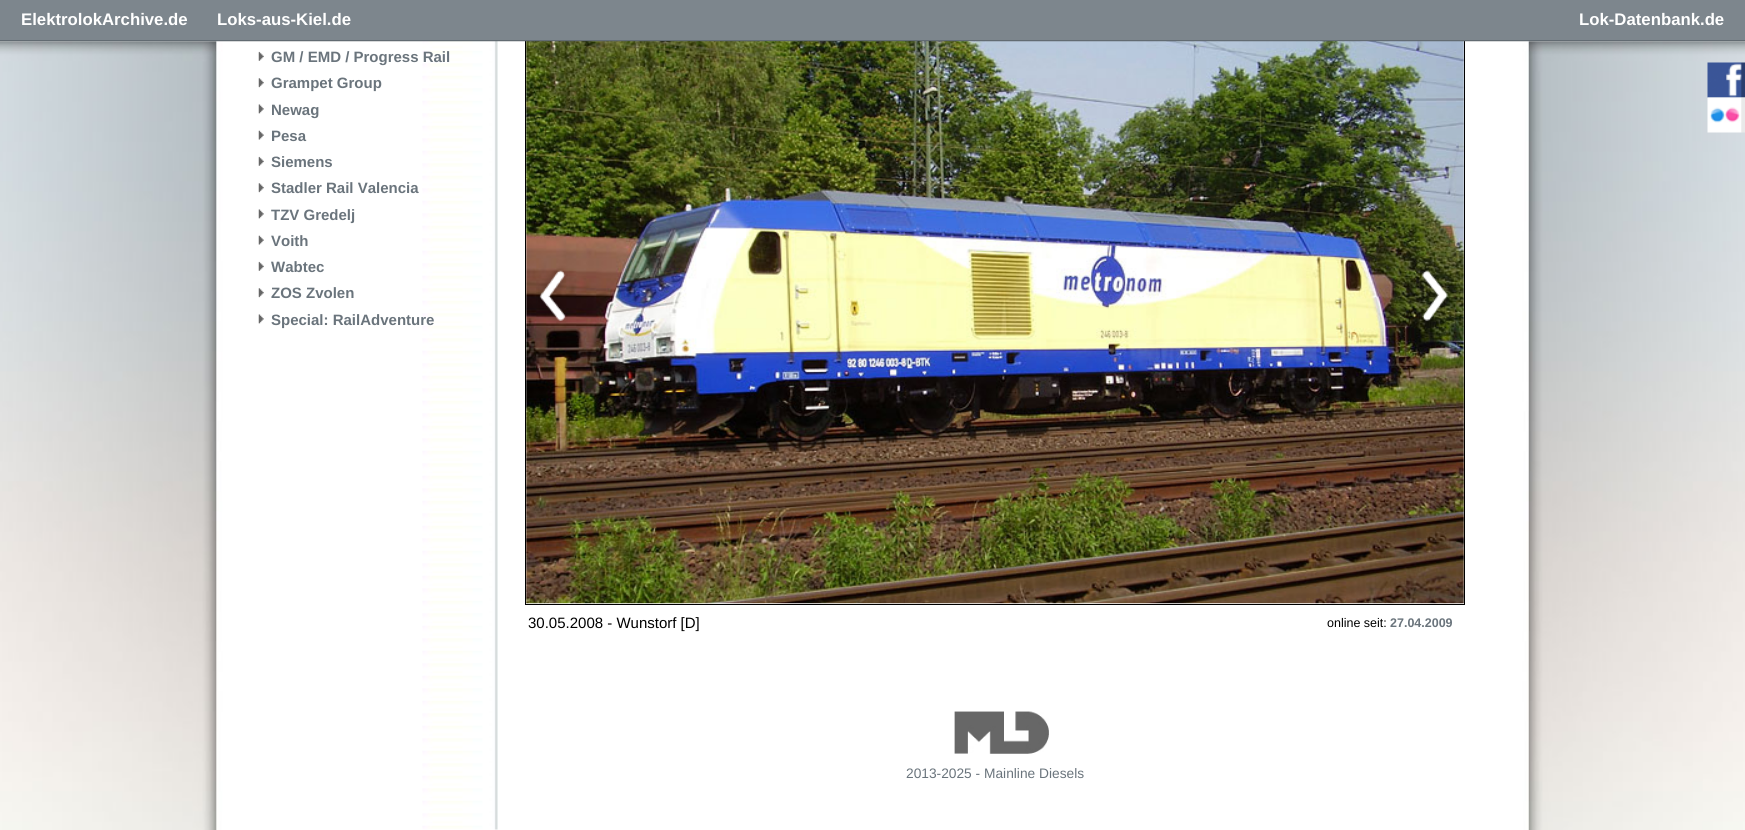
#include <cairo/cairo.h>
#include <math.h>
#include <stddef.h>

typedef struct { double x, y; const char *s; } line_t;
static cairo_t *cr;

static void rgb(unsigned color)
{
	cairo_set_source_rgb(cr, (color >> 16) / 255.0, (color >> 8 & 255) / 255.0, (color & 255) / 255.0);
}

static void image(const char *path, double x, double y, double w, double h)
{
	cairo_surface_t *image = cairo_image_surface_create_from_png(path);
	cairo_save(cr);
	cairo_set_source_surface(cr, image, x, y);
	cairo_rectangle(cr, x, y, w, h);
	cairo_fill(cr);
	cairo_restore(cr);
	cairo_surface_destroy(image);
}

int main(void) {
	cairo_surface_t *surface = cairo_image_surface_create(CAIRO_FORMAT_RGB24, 1745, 830);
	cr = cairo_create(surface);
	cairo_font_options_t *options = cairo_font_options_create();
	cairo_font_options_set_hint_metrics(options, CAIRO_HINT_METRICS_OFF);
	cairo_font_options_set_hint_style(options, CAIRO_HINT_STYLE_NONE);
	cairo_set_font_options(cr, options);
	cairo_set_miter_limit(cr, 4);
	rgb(0xffffff);
	cairo_paint(cr);
	image("img/1.png", 0, 41, 1745, 789);
	cairo_rectangle(cr, 525.5, -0.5, 939, 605);
	rgb(0x000000);
	cairo_set_line_width(cr, 1);
	cairo_stroke(cr);
	rgb(0x7d868d);
	cairo_rectangle(cr, 0, 0, 1745, 40);
	cairo_fill(cr);
	image("img/3.png", 422, 41, 76, 789);
	image("img/8.png", 526, 41, 938, 563);
	image("img/2.png", 0, 40, 1745, 2);
	image("img/4.png", 258, 51, 6, 10);
	image("img/5.png", 258, 78, 6, 10);
	image("img/6.png", 258, 104, 6, 10);
	image("img/7.png", 258, 130, 6, 10);
	image("img/4.png", 258, 156, 6, 10);
	image("img/5.png", 258, 183, 6, 10);
	image("img/6.png", 258, 209, 6, 10);
	image("img/7.png", 258, 235, 6, 10);
	image("img/4.png", 258, 261, 6, 10);
	image("img/5.png", 258, 288, 6, 10);
	image("img/6.png", 258, 314, 6, 10);
	image("img/9.png", 538, 268, 30, 55);
	image("img/10.png", 1421, 270, 29, 51);
	image("img/11.png", 954, 711, 95, 43);
	image("img/12.png", 1707, 62, 38, 36);
	image("img/13.png", 1707, 97, 38, 36);
	cairo_select_font_face(cr, "Liberation Sans", CAIRO_FONT_SLANT_NORMAL, CAIRO_FONT_WEIGHT_BOLD);
	cairo_set_font_size(cr, 16.75);
	rgb(0xffffff);
	{
		static const line_t items[] = {
			{21, 25, "ElektrolokArchive.de"},
			{217, 25, "Loks-aus-Kiel.de"},
			{1579, 25, "Lok-Datenbank.de"},
		};
		for (size_t i = 0; i < sizeof items / sizeof *items; i++) {
			cairo_move_to(cr, items[i].x, items[i].y);
			cairo_show_text(cr, items[i].s);
		}
	}
	cairo_set_font_size(cr, 15);
	rgb(0x6a747c);
	{
		static const line_t items[] = {
			{271, 62, "GM / EMD / Progress Rail"},
			{271, 88, "Grampet Group"},
			{271, 115, "Newag"},
			{271, 141, "Pesa"},
			{271, 167, "Siemens"},
			{271, 193, "Stadler Rail Valencia"},
			{271, 220, "TZV Gredelj"},
			{271, 246, "Voith"},
			{271, 272, "Wabtec"},
			{271, 298, "ZOS Zvolen"},
			{271, 325, "Special: RailAdventure"},
		};
		for (size_t i = 0; i < sizeof items / sizeof *items; i++) {
			cairo_move_to(cr, items[i].x, items[i].y);
			cairo_show_text(cr, items[i].s);
		}
	}
	cairo_select_font_face(cr, "Liberation Sans", CAIRO_FONT_SLANT_NORMAL, CAIRO_FONT_WEIGHT_NORMAL);
	rgb(0x000000);
	cairo_move_to(cr, 528, 628);
	cairo_show_text(cr, "30.05.2008 - Wunstorf [D]");
	cairo_set_font_size(cr, 12.5);
	cairo_move_to(cr, 1327, 627);
	cairo_show_text(cr, "online seit:");
	cairo_select_font_face(cr, "Liberation Sans", CAIRO_FONT_SLANT_NORMAL, CAIRO_FONT_WEIGHT_BOLD);
	rgb(0x6a747c);
	cairo_move_to(cr, 1390, 627);
	cairo_show_text(cr, "27.04.2009");
	cairo_select_font_face(cr, "Liberation Sans", CAIRO_FONT_SLANT_NORMAL, CAIRO_FONT_WEIGHT_NORMAL);
	cairo_set_font_size(cr, 13.75);
	cairo_move_to(cr, 906, 778);
	cairo_show_text(cr, "2013-2025 - Mainline Diesels");
	cairo_surface_write_to_png(surface, "page.png");
	cairo_font_options_destroy(options);
	cairo_destroy(cr);
	cairo_surface_destroy(surface);
	return 0;
}
